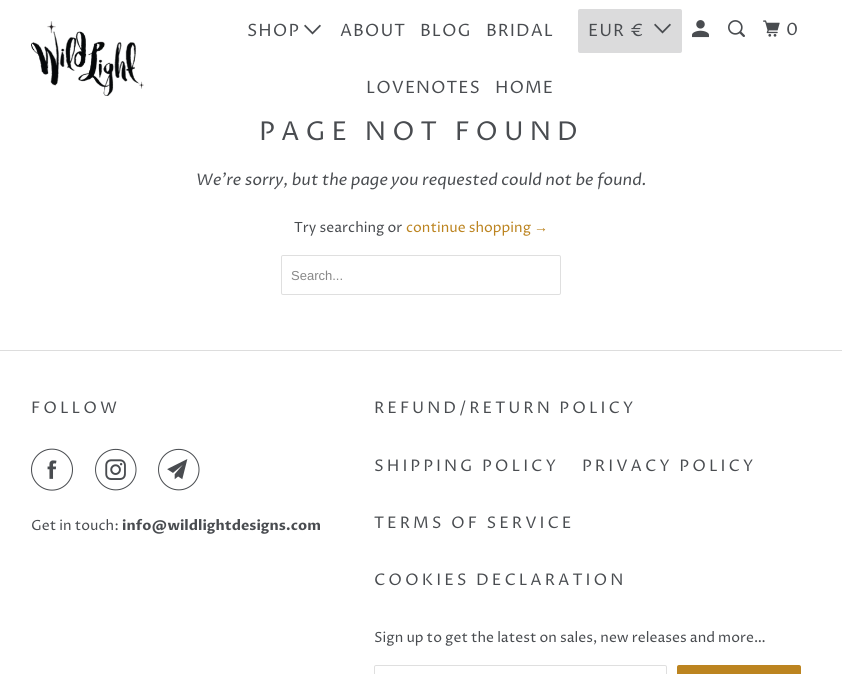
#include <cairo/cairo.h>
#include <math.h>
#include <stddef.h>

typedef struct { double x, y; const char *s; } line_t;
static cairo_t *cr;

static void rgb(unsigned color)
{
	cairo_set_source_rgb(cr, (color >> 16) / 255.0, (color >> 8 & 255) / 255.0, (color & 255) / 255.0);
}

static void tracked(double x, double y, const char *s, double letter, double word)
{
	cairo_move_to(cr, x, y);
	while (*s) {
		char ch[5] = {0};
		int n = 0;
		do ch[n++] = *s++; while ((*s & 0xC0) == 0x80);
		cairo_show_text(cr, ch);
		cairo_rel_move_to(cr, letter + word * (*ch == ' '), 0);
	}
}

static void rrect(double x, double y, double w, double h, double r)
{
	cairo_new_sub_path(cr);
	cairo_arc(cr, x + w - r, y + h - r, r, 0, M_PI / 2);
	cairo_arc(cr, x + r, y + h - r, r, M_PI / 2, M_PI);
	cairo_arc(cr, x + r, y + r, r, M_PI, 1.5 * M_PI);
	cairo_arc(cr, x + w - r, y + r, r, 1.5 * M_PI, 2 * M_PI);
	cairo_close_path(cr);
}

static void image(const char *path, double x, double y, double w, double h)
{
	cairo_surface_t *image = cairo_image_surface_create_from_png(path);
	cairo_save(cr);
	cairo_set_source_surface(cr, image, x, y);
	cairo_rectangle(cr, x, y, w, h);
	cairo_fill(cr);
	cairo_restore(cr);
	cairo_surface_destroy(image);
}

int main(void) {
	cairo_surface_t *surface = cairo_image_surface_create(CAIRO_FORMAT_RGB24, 842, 674);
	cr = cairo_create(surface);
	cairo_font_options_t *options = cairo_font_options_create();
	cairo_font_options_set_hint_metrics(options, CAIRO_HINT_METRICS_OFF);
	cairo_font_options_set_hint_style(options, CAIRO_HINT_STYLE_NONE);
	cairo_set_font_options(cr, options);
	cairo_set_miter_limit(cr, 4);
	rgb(0xffffff);
	cairo_paint(cr);
	image("img/1.png", 31, 21, 113, 75);
	image("img/2.png", 304, 24, 17, 11);
	rgb(0xdbdbdc);
	rrect(578, 9, 104, 44, 2);
	cairo_fill(cr);
	image("img/3.png", 654, 23, 17, 11);
	image("img/4.png", 692, 20, 17, 18);
	image("img/5.png", 728, 20, 17, 17);
	image("img/6.png", 763, 20, 17, 17);
	rrect(281.5, 255.5, 279, 39, 1.5);
	rgb(0xdfdfdf);
	cairo_set_line_width(cr, 1);
	cairo_stroke(cr);
	rgb(0xdddddd);
	cairo_rectangle(cr, 0, 350, 842, 1);
	cairo_fill(cr);
	image("img/7.png", 31, 448, 42, 43);
	image("img/8.png", 95, 448, 42, 43);
	image("img/9.png", 158, 448, 42, 43);
	rrect(374.5, 665.5, 292, 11, 1.5);
	rgb(0xdfdfdf);
	cairo_stroke(cr);
	rgb(0xbc8420);
	rrect(677, 665, 124, 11, 2);
	cairo_fill(cr);
	cairo_select_font_face(cr, "Proza Libre", CAIRO_FONT_SLANT_NORMAL, CAIRO_FONT_WEIGHT_NORMAL);
	cairo_set_font_size(cr, 17);
	rgb(0x494c50);
	{
		static const line_t items[] = {
			{247, 36, "SHOP"},
			{340, 36, "ABOUT"},
			{420, 36, "BLOG"},
			{486, 36, "BRIDAL"},
			{366, 93, "LOVENOTES"},
			{495, 93, "HOME"},
			{588, 36, "EUR €"},
			{786, 35, "0"},
		};
		for (size_t i = 0; i < sizeof items / sizeof *items; i++) {
			tracked(items[i].x, items[i].y, items[i].s, 1, 0);
		}
	}
	cairo_set_font_size(cr, 26);
	tracked(259, 140, "PAGE NOT FOUND", 6, 0);
	cairo_select_font_face(cr, "Proza Libre", CAIRO_FONT_SLANT_ITALIC, CAIRO_FONT_WEIGHT_NORMAL);
	cairo_set_font_size(cr, 16);
	cairo_move_to(cr, 196, 185);
	cairo_show_text(cr, "We're sorry, but the page you requested could not be found.");
	cairo_select_font_face(cr, "Proza Libre", CAIRO_FONT_SLANT_NORMAL, CAIRO_FONT_WEIGHT_NORMAL);
	cairo_set_font_size(cr, 14);
	cairo_move_to(cr, 294, 232);
	cairo_show_text(cr, "Try searching or");
	rgb(0xbc8420);
	cairo_move_to(cr, 406, 232);
	cairo_show_text(cr, "continue shopping");
	cairo_select_font_face(cr, "Liberation Sans", CAIRO_FONT_SLANT_NORMAL, CAIRO_FONT_WEIGHT_NORMAL);
	cairo_move_to(cr, 534, 232);
	cairo_show_text(cr, "→");
	cairo_set_font_size(cr, 13);
	rgb(0x888888);
	cairo_move_to(cr, 291, 280);
	cairo_show_text(cr, "Search...");
	cairo_select_font_face(cr, "Proza Libre", CAIRO_FONT_SLANT_NORMAL, CAIRO_FONT_WEIGHT_NORMAL);
	cairo_set_font_size(cr, 16);
	rgb(0x494c50);
	tracked(31, 413, "FOLLOW", 3, 0);
	cairo_set_font_size(cr, 14);
	cairo_move_to(cr, 31, 530);
	cairo_show_text(cr, "Get in touch:");
	cairo_select_font_face(cr, "Proza Libre", CAIRO_FONT_SLANT_NORMAL, CAIRO_FONT_WEIGHT_BOLD);
	cairo_move_to(cr, 122, 530);
	cairo_show_text(cr, "info@wildlightdesigns.com");
	cairo_select_font_face(cr, "Proza Libre", CAIRO_FONT_SLANT_NORMAL, CAIRO_FONT_WEIGHT_NORMAL);
	cairo_set_font_size(cr, 16);
	{
		static const line_t items[] = {
			{374, 413, "REFUND/RETURN POLICY"},
			{374, 471, "SHIPPING POLICY"},
			{582, 471, "PRIVACY POLICY"},
			{374, 528, "TERMS OF SERVICE"},
			{374, 585, "COOKIES DECLARATION"},
		};
		for (size_t i = 0; i < sizeof items / sizeof *items; i++) {
			tracked(items[i].x, items[i].y, items[i].s, 3, 0);
		}
	}
	cairo_set_font_size(cr, 14);
	cairo_move_to(cr, 374, 642);
	cairo_show_text(cr, "Sign up to get the latest on sales, new releases and more…");
	cairo_surface_write_to_png(surface, "page.png");
	cairo_font_options_destroy(options);
	cairo_destroy(cr);
	cairo_surface_destroy(surface);
	return 0;
}
